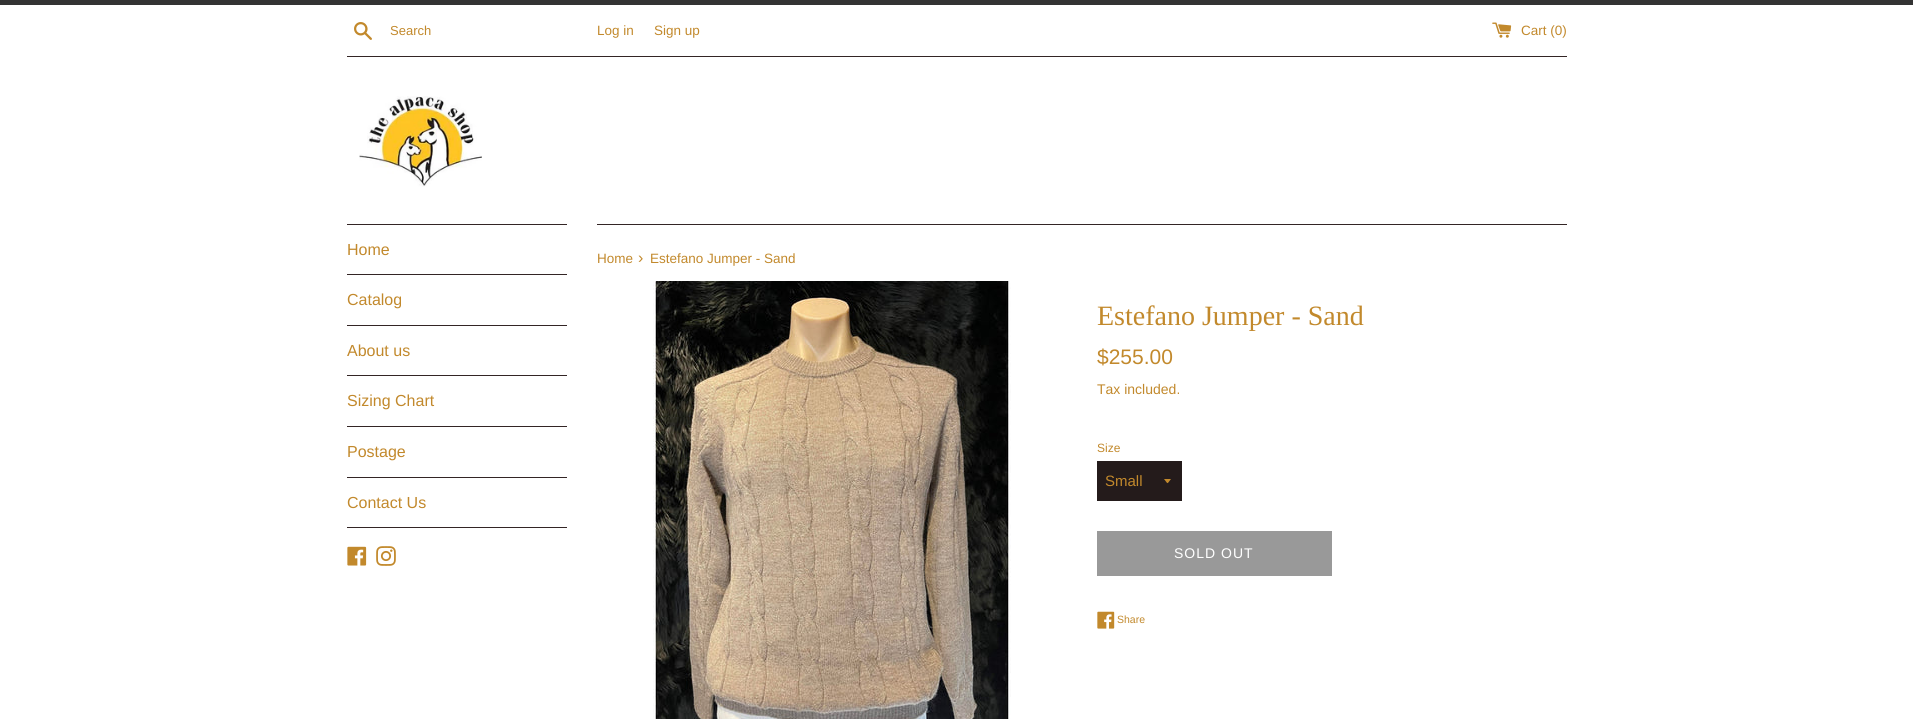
#include <cairo/cairo.h>
#include <math.h>
#include <stddef.h>

typedef struct { double x, y; const char *s; } line_t;
typedef struct { double x, y, w, h; unsigned color; } box_t;
static cairo_t *cr;

static void rgb(unsigned color)
{
	cairo_set_source_rgb(cr, (color >> 16) / 255.0, (color >> 8 & 255) / 255.0, (color & 255) / 255.0);
}

static void tracked(double x, double y, const char *s, double letter, double word)
{
	cairo_move_to(cr, x, y);
	while (*s) {
		char ch[5] = {0};
		int n = 0;
		do ch[n++] = *s++; while ((*s & 0xC0) == 0x80);
		cairo_show_text(cr, ch);
		cairo_rel_move_to(cr, letter + word * (*ch == ' '), 0);
	}
}

static void image(const char *path, double x, double y, double w, double h)
{
	cairo_surface_t *image = cairo_image_surface_create_from_png(path);
	cairo_save(cr);
	cairo_set_source_surface(cr, image, x, y);
	cairo_rectangle(cr, x, y, w, h);
	cairo_fill(cr);
	cairo_restore(cr);
	cairo_surface_destroy(image);
}

int main(void) {
	cairo_surface_t *surface = cairo_image_surface_create(CAIRO_FORMAT_RGB24, 1913, 719);
	cr = cairo_create(surface);
	cairo_font_options_t *options = cairo_font_options_create();
	cairo_font_options_set_hint_metrics(options, CAIRO_HINT_METRICS_OFF);
	cairo_font_options_set_hint_style(options, CAIRO_HINT_STYLE_NONE);
	cairo_set_font_options(cr, options);
	cairo_set_miter_limit(cr, 4);
	rgb(0xffffff);
	cairo_paint(cr);
	rgb(0x333333);
	cairo_rectangle(cr, 0, 0, 1913, 5);
	cairo_fill(cr);
	image("img/1.png", 354, 22, 18, 18);
	image("img/2.png", 1492, 22, 20, 16);
	rgb(0x332525);
	cairo_rectangle(cr, 347, 56, 1220, 1);
	cairo_fill(cr);
	image("img/3.png", 359, 96, 123, 91);
	{
		static const box_t items[] = {
			{347, 224, 220, 1, 0x332525},
			{347, 274, 220, 1, 0x332525},
			{347, 325, 220, 1, 0x332525},
			{347, 375, 220, 1, 0x332525},
			{347, 426, 220, 1, 0x332525},
			{347, 477, 220, 1, 0x332525},
			{347, 527, 220, 1, 0x332525},
		};
		for (size_t i = 0; i < sizeof items / sizeof *items; i++) {
			rgb(items[i].color);
			cairo_rectangle(cr, items[i].x, items[i].y, items[i].w, items[i].h);
			cairo_fill(cr);
		}
	}
	image("img/4.png", 347, 546, 20, 20);
	image("img/5.png", 376, 546, 20, 20);
	cairo_rectangle(cr, 597, 224, 970, 1);
	cairo_fill(cr);
	image("img/6.png", 653, 281, 358, 438);
	rgb(0x241b1b);
	cairo_rectangle(cr, 1097, 461, 85, 40);
	cairo_fill(cr);
	rgb(0xc2892c);
	cairo_new_path(cr);
	cairo_move_to(cr, 1164, 479);
	cairo_curve_to(cr, 1168.5, 484.5, 1166.5, 484.5, 1171, 479);
	cairo_close_path(cr);
	cairo_fill(cr);
	rgb(0x999999);
	cairo_rectangle(cr, 1097, 531, 235, 45);
	cairo_fill(cr);
	image("img/7.png", 1097, 611, 18, 18);
	cairo_select_font_face(cr, "Liberation Sans", CAIRO_FONT_SLANT_NORMAL, CAIRO_FONT_WEIGHT_NORMAL);
	cairo_set_font_size(cr, 13);
	rgb(0xc2892c);
	cairo_move_to(cr, 390, 35);
	cairo_show_text(cr, "Search");
	cairo_set_font_size(cr, 13.5);
	{
		static const line_t items[] = {
			{597, 35, "Log in"},
			{654, 35, "Sign up"},
			{1521, 35, "Cart (0)"},
		};
		for (size_t i = 0; i < sizeof items / sizeof *items; i++) {
			cairo_move_to(cr, items[i].x, items[i].y);
			cairo_show_text(cr, items[i].s);
		}
	}
	cairo_set_font_size(cr, 16);
	{
		static const line_t items[] = {
			{347, 255, "Home"},
			{347, 305, "Catalog"},
			{347, 356, "About us"},
			{347, 406, "Sizing Chart"},
			{347, 457, "Postage"},
			{347, 508, "Contact Us"},
		};
		for (size_t i = 0; i < sizeof items / sizeof *items; i++) {
			cairo_move_to(cr, items[i].x, items[i].y);
			cairo_show_text(cr, items[i].s);
		}
	}
	cairo_set_font_size(cr, 13.5);
	cairo_move_to(cr, 597, 263);
	cairo_show_text(cr, "Home");
	cairo_set_font_size(cr, 16);
	cairo_move_to(cr, 638, 263);
	cairo_show_text(cr, "›");
	cairo_set_font_size(cr, 13.5);
	cairo_move_to(cr, 650, 263);
	cairo_show_text(cr, "Estefano Jumper - Sand");
	cairo_select_font_face(cr, "Liberation Serif", CAIRO_FONT_SLANT_NORMAL, CAIRO_FONT_WEIGHT_NORMAL);
	cairo_set_font_size(cr, 28);
	cairo_move_to(cr, 1097, 325);
	cairo_show_text(cr, "Estefano Jumper - Sand");
	cairo_select_font_face(cr, "Liberation Sans", CAIRO_FONT_SLANT_NORMAL, CAIRO_FONT_WEIGHT_NORMAL);
	cairo_set_font_size(cr, 21);
	cairo_move_to(cr, 1097, 364);
	cairo_show_text(cr, "$255.00");
	cairo_set_font_size(cr, 14);
	cairo_move_to(cr, 1097, 394);
	cairo_show_text(cr, "Tax included.");
	cairo_set_font_size(cr, 12);
	cairo_move_to(cr, 1097, 452);
	cairo_show_text(cr, "Size");
	cairo_set_font_size(cr, 15);
	cairo_move_to(cr, 1105, 486);
	cairo_show_text(cr, "Small");
	cairo_set_font_size(cr, 14);
	rgb(0xffffff);
	tracked(1174, 558, "SOLD OUT", 1, 0);
	cairo_set_font_size(cr, 10.5);
	rgb(0xc2892c);
	cairo_move_to(cr, 1117, 623);
	cairo_show_text(cr, "Share");
	cairo_surface_write_to_png(surface, "page.png");
	cairo_font_options_destroy(options);
	cairo_destroy(cr);
	cairo_surface_destroy(surface);
	return 0;
}
